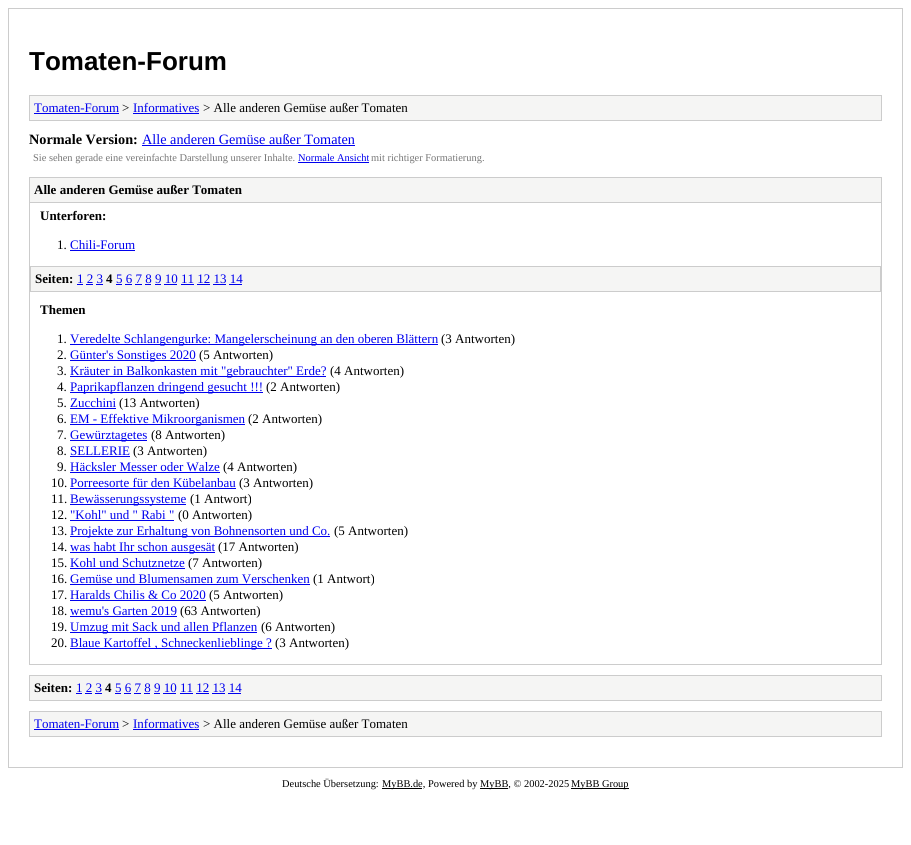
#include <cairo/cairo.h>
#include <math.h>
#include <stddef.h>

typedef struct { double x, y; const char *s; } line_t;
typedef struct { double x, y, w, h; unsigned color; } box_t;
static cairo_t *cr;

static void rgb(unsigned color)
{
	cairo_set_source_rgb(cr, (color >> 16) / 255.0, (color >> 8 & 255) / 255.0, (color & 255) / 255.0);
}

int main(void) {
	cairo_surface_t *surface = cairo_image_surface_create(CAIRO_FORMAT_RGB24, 911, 845);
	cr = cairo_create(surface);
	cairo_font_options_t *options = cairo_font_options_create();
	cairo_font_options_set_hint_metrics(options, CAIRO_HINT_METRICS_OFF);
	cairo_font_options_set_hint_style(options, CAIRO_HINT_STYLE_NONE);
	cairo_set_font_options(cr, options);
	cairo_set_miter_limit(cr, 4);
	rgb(0xffffff);
	cairo_paint(cr);
	cairo_rectangle(cr, 8.5, 8.5, 894, 759);
	rgb(0xcccccc);
	cairo_set_line_width(cr, 1);
	cairo_stroke(cr);
	rgb(0xf5f5f4);
	cairo_rectangle(cr, 29.5, 95.5, 852, 25);
	cairo_fill_preserve(cr);
	rgb(0xcccccc);
	cairo_stroke(cr);
	{
		static const box_t items[] = {
			{34, 113, 85, 1, 0x0000ee},
			{133, 113, 66, 1, 0x0000ee},
			{142, 145, 213, 1, 0x0000ee},
			{298, 162, 71, 1, 0x0000ee},
		};
		for (size_t i = 0; i < sizeof items / sizeof *items; i++) {
			rgb(items[i].color);
			cairo_rectangle(cr, items[i].x, items[i].y, items[i].w, items[i].h);
			cairo_fill(cr);
		}
	}
	cairo_rectangle(cr, 29.5, 177.5, 852, 487);
	rgb(0xcccccc);
	cairo_stroke(cr);
	{
		static const box_t items[] = {
			{30, 178, 851, 24, 0xf5f5f4},
			{30, 202, 851, 1, 0xcccccc},
			{70, 250, 65, 1, 0x0000ee},
		};
		for (size_t i = 0; i < sizeof items / sizeof *items; i++) {
			rgb(items[i].color);
			cairo_rectangle(cr, items[i].x, items[i].y, items[i].w, items[i].h);
			cairo_fill(cr);
		}
	}
	rgb(0xf5f5f4);
	cairo_rectangle(cr, 30.5, 266.5, 850, 25);
	cairo_fill_preserve(cr);
	rgb(0xcccccc);
	cairo_stroke(cr);
	{
		static const box_t items[] = {
			{77, 284, 6, 1, 0x0000ee},
			{116, 284, 6, 1, 0x0000ee},
			{86, 284, 7, 1, 0x0000ee},
			{96, 284, 7, 1, 0x0000ee},
			{125, 284, 7, 1, 0x0000ee},
			{135, 284, 7, 1, 0x0000ee},
			{145, 284, 6, 1, 0x0000ee},
			{155, 284, 6, 1, 0x0000ee},
			{164, 284, 13, 1, 0x0000ee},
			{181, 284, 13, 1, 0x0000ee},
			{197, 284, 13, 1, 0x0000ee},
			{213, 284, 13, 1, 0x0000ee},
			{229, 284, 13, 1, 0x0000ee},
			{70, 344, 368, 1, 0x0000ee},
			{70, 360, 126, 1, 0x0000ee},
			{70, 376, 256, 1, 0x0000ee},
			{70, 392, 193, 1, 0x0000ee},
			{70, 408, 46, 1, 0x0000ee},
			{70, 424, 175, 1, 0x0000ee},
			{70, 440, 77, 1, 0x0000ee},
			{70, 456, 60, 1, 0x0000ee},
			{70, 472, 150, 1, 0x0000ee},
			{70, 488, 166, 1, 0x0000ee},
			{70, 504, 116, 1, 0x0000ee},
			{70, 520, 104, 1, 0x0000ee},
			{70, 536, 260, 1, 0x0000ee},
			{70, 552, 145, 1, 0x0000ee},
			{70, 568, 115, 1, 0x0000ee},
			{70, 584, 240, 1, 0x0000ee},
			{70, 600, 136, 1, 0x0000ee},
			{70, 616, 107, 1, 0x0000ee},
			{70, 632, 187, 1, 0x0000ee},
			{70, 648, 202, 1, 0x0000ee},
		};
		for (size_t i = 0; i < sizeof items / sizeof *items; i++) {
			rgb(items[i].color);
			cairo_rectangle(cr, items[i].x, items[i].y, items[i].w, items[i].h);
			cairo_fill(cr);
		}
	}
	rgb(0xf5f5f4);
	cairo_rectangle(cr, 29.5, 675.5, 852, 25);
	cairo_fill_preserve(cr);
	rgb(0xcccccc);
	cairo_stroke(cr);
	{
		static const box_t items[] = {
			{76, 693, 6, 1, 0x0000ee},
			{115, 693, 6, 1, 0x0000ee},
			{85, 693, 7, 1, 0x0000ee},
			{95, 693, 7, 1, 0x0000ee},
			{124, 693, 7, 1, 0x0000ee},
			{134, 693, 7, 1, 0x0000ee},
			{144, 693, 6, 1, 0x0000ee},
			{154, 693, 6, 1, 0x0000ee},
			{163, 693, 13, 1, 0x0000ee},
			{180, 693, 13, 1, 0x0000ee},
			{196, 693, 13, 1, 0x0000ee},
			{212, 693, 13, 1, 0x0000ee},
			{228, 693, 13, 1, 0x0000ee},
		};
		for (size_t i = 0; i < sizeof items / sizeof *items; i++) {
			rgb(items[i].color);
			cairo_rectangle(cr, items[i].x, items[i].y, items[i].w, items[i].h);
			cairo_fill(cr);
		}
	}
	rgb(0xf5f5f4);
	cairo_rectangle(cr, 29.5, 711.5, 852, 25);
	cairo_fill_preserve(cr);
	rgb(0xcccccc);
	cairo_stroke(cr);
	{
		static const box_t items[] = {
			{34, 729, 85, 1, 0x0000ee},
			{133, 729, 66, 1, 0x0000ee},
			{382, 788, 40, 1, 0x000000},
			{480, 788, 28, 1, 0x000000},
			{571, 788, 58, 1, 0x000000},
		};
		for (size_t i = 0; i < sizeof items / sizeof *items; i++) {
			rgb(items[i].color);
			cairo_rectangle(cr, items[i].x, items[i].y, items[i].w, items[i].h);
			cairo_fill(cr);
		}
	}
	cairo_select_font_face(cr, "Liberation Sans", CAIRO_FONT_SLANT_NORMAL, CAIRO_FONT_WEIGHT_BOLD);
	cairo_set_font_size(cr, 26);
	cairo_move_to(cr, 29, 70);
	cairo_show_text(cr, "Tomaten-Forum");
	cairo_select_font_face(cr, "Liberation Serif", CAIRO_FONT_SLANT_NORMAL, CAIRO_FONT_WEIGHT_NORMAL);
	cairo_set_font_size(cr, 13);
	rgb(0x0000ee);
	cairo_move_to(cr, 34, 112);
	cairo_show_text(cr, "Tomaten-Forum");
	rgb(0x000000);
	cairo_move_to(cr, 122, 112);
	cairo_show_text(cr, ">");
	rgb(0x0000ee);
	cairo_move_to(cr, 133, 112);
	cairo_show_text(cr, "Informatives");
	rgb(0x000000);
	cairo_move_to(cr, 203, 112);
	cairo_show_text(cr, "> Alle anderen Gemüse außer Tomaten");
	cairo_select_font_face(cr, "Liberation Serif", CAIRO_FONT_SLANT_NORMAL, CAIRO_FONT_WEIGHT_BOLD);
	cairo_set_font_size(cr, 14.25);
	cairo_move_to(cr, 29, 144);
	cairo_show_text(cr, "Normale Version:");
	cairo_select_font_face(cr, "Liberation Serif", CAIRO_FONT_SLANT_NORMAL, CAIRO_FONT_WEIGHT_NORMAL);
	rgb(0x0000ee);
	cairo_move_to(cr, 142, 144);
	cairo_show_text(cr, "Alle anderen Gemüse außer Tomaten");
	cairo_set_font_size(cr, 10.4);
	rgb(0x777777);
	cairo_move_to(cr, 33, 161);
	cairo_show_text(cr, "Sie sehen gerade eine vereinfachte Darstellung unserer Inhalte.");
	rgb(0x0000ee);
	cairo_move_to(cr, 298, 161);
	cairo_show_text(cr, "Normale Ansicht");
	rgb(0x777777);
	cairo_move_to(cr, 371, 161);
	cairo_show_text(cr, "mit richtiger Formatierung.");
	cairo_select_font_face(cr, "Liberation Serif", CAIRO_FONT_SLANT_NORMAL, CAIRO_FONT_WEIGHT_BOLD);
	cairo_set_font_size(cr, 13);
	rgb(0x000000);
	cairo_move_to(cr, 34, 194);
	cairo_show_text(cr, "Alle anderen Gemüse außer Tomaten");
	cairo_move_to(cr, 40, 220);
	cairo_show_text(cr, "Unterforen:");
	cairo_select_font_face(cr, "Liberation Serif", CAIRO_FONT_SLANT_NORMAL, CAIRO_FONT_WEIGHT_NORMAL);
	cairo_move_to(cr, 57, 249);
	cairo_show_text(cr, "1.");
	rgb(0x0000ee);
	cairo_move_to(cr, 70, 249);
	cairo_show_text(cr, "Chili-Forum");
	cairo_select_font_face(cr, "Liberation Serif", CAIRO_FONT_SLANT_NORMAL, CAIRO_FONT_WEIGHT_BOLD);
	rgb(0x000000);
	cairo_move_to(cr, 35, 283);
	cairo_show_text(cr, "Seiten:");
	cairo_select_font_face(cr, "Liberation Serif", CAIRO_FONT_SLANT_NORMAL, CAIRO_FONT_WEIGHT_NORMAL);
	rgb(0x0000ee);
	cairo_move_to(cr, 77, 283);
	cairo_show_text(cr, "1 2 3");
	cairo_select_font_face(cr, "Liberation Serif", CAIRO_FONT_SLANT_NORMAL, CAIRO_FONT_WEIGHT_BOLD);
	rgb(0x000000);
	cairo_move_to(cr, 106, 283);
	cairo_show_text(cr, "4");
	cairo_select_font_face(cr, "Liberation Serif", CAIRO_FONT_SLANT_NORMAL, CAIRO_FONT_WEIGHT_NORMAL);
	rgb(0x0000ee);
	cairo_move_to(cr, 116, 283);
	cairo_show_text(cr, "5 6 7 8 9 10 11 12 13 14");
	cairo_select_font_face(cr, "Liberation Serif", CAIRO_FONT_SLANT_NORMAL, CAIRO_FONT_WEIGHT_BOLD);
	rgb(0x000000);
	cairo_move_to(cr, 40, 314);
	cairo_show_text(cr, "Themen");
	cairo_select_font_face(cr, "Liberation Serif", CAIRO_FONT_SLANT_NORMAL, CAIRO_FONT_WEIGHT_NORMAL);
	cairo_move_to(cr, 57, 343);
	cairo_show_text(cr, "1.");
	rgb(0x0000ee);
	cairo_move_to(cr, 70, 343);
	cairo_show_text(cr, "Veredelte Schlangengurke: Mangelerscheinung an den oberen Blättern");
	rgb(0x000000);
	cairo_move_to(cr, 441, 343);
	cairo_show_text(cr, "(3 Antworten)");
	cairo_move_to(cr, 57, 359);
	cairo_show_text(cr, "2.");
	rgb(0x0000ee);
	cairo_move_to(cr, 70, 359);
	cairo_show_text(cr, "Günter's Sonstiges 2020");
	rgb(0x000000);
	cairo_move_to(cr, 199, 359);
	cairo_show_text(cr, "(5 Antworten)");
	cairo_move_to(cr, 57, 375);
	cairo_show_text(cr, "3.");
	rgb(0x0000ee);
	cairo_move_to(cr, 70, 375);
	cairo_show_text(cr, "Kräuter in Balkonkasten mit \"gebrauchter\" Erde?");
	rgb(0x000000);
	cairo_move_to(cr, 330, 375);
	cairo_show_text(cr, "(4 Antworten)");
	cairo_move_to(cr, 57, 391);
	cairo_show_text(cr, "4.");
	rgb(0x0000ee);
	cairo_move_to(cr, 70, 391);
	cairo_show_text(cr, "Paprikapflanzen dringend gesucht !!!");
	rgb(0x000000);
	cairo_move_to(cr, 266, 391);
	cairo_show_text(cr, "(2 Antworten)");
	cairo_move_to(cr, 57, 407);
	cairo_show_text(cr, "5.");
	rgb(0x0000ee);
	cairo_move_to(cr, 70, 407);
	cairo_show_text(cr, "Zucchini");
	rgb(0x000000);
	cairo_move_to(cr, 119, 407);
	cairo_show_text(cr, "(13 Antworten)");
	cairo_move_to(cr, 57, 423);
	cairo_show_text(cr, "6.");
	rgb(0x0000ee);
	cairo_move_to(cr, 70, 423);
	cairo_show_text(cr, "EM - Effektive Mikroorganismen");
	rgb(0x000000);
	cairo_move_to(cr, 248, 423);
	cairo_show_text(cr, "(2 Antworten)");
	cairo_move_to(cr, 57, 439);
	cairo_show_text(cr, "7.");
	rgb(0x0000ee);
	cairo_move_to(cr, 70, 439);
	cairo_show_text(cr, "Gewürztagetes");
	rgb(0x000000);
	cairo_move_to(cr, 151, 439);
	cairo_show_text(cr, "(8 Antworten)");
	cairo_move_to(cr, 57, 455);
	cairo_show_text(cr, "8.");
	rgb(0x0000ee);
	cairo_move_to(cr, 70, 455);
	cairo_show_text(cr, "SELLERIE");
	rgb(0x000000);
	cairo_move_to(cr, 133, 455);
	cairo_show_text(cr, "(3 Antworten)");
	cairo_move_to(cr, 57, 471);
	cairo_show_text(cr, "9.");
	rgb(0x0000ee);
	cairo_move_to(cr, 70, 471);
	cairo_show_text(cr, "Häcksler Messer oder Walze");
	rgb(0x000000);
	cairo_move_to(cr, 223, 471);
	cairo_show_text(cr, "(4 Antworten)");
	cairo_move_to(cr, 51, 487);
	cairo_show_text(cr, "10.");
	rgb(0x0000ee);
	cairo_move_to(cr, 70, 487);
	cairo_show_text(cr, "Porreesorte für den Kübelanbau");
	rgb(0x000000);
	cairo_move_to(cr, 239, 487);
	cairo_show_text(cr, "(3 Antworten)");
	cairo_move_to(cr, 51, 503);
	cairo_show_text(cr, "11.");
	rgb(0x0000ee);
	cairo_move_to(cr, 70, 503);
	cairo_show_text(cr, "Bewässerungssysteme");
	rgb(0x000000);
	cairo_move_to(cr, 190, 503);
	cairo_show_text(cr, "(1 Antwort)");
	cairo_move_to(cr, 51, 519);
	cairo_show_text(cr, "12.");
	rgb(0x0000ee);
	cairo_move_to(cr, 70, 519);
	cairo_show_text(cr, "\"Kohl\" und \" Rabi \"");
	rgb(0x000000);
	cairo_move_to(cr, 178, 519);
	cairo_show_text(cr, "(0 Antworten)");
	cairo_move_to(cr, 51, 535);
	cairo_show_text(cr, "13.");
	rgb(0x0000ee);
	cairo_move_to(cr, 70, 535);
	cairo_show_text(cr, "Projekte zur Erhaltung von Bohnensorten und Co.");
	rgb(0x000000);
	cairo_move_to(cr, 334, 535);
	cairo_show_text(cr, "(5 Antworten)");
	cairo_move_to(cr, 51, 551);
	cairo_show_text(cr, "14.");
	rgb(0x0000ee);
	cairo_move_to(cr, 70, 551);
	cairo_show_text(cr, "was habt Ihr schon ausgesät");
	rgb(0x000000);
	cairo_move_to(cr, 218, 551);
	cairo_show_text(cr, "(17 Antworten)");
	cairo_move_to(cr, 51, 567);
	cairo_show_text(cr, "15.");
	rgb(0x0000ee);
	cairo_move_to(cr, 70, 567);
	cairo_show_text(cr, "Kohl und Schutznetze");
	rgb(0x000000);
	cairo_move_to(cr, 188, 567);
	cairo_show_text(cr, "(7 Antworten)");
	cairo_move_to(cr, 51, 583);
	cairo_show_text(cr, "16.");
	rgb(0x0000ee);
	cairo_move_to(cr, 70, 583);
	cairo_show_text(cr, "Gemüse und Blumensamen zum Verschenken");
	rgb(0x000000);
	cairo_move_to(cr, 313, 583);
	cairo_show_text(cr, "(1 Antwort)");
	cairo_move_to(cr, 51, 599);
	cairo_show_text(cr, "17.");
	rgb(0x0000ee);
	cairo_move_to(cr, 70, 599);
	cairo_show_text(cr, "Haralds Chilis & Co 2020");
	rgb(0x000000);
	cairo_move_to(cr, 209, 599);
	cairo_show_text(cr, "(5 Antworten)");
	cairo_move_to(cr, 51, 615);
	cairo_show_text(cr, "18.");
	rgb(0x0000ee);
	cairo_move_to(cr, 70, 615);
	cairo_show_text(cr, "wemu's Garten 2019");
	rgb(0x000000);
	cairo_move_to(cr, 180, 615);
	cairo_show_text(cr, "(63 Antworten)");
	cairo_move_to(cr, 51, 631);
	cairo_show_text(cr, "19.");
	rgb(0x0000ee);
	cairo_move_to(cr, 70, 631);
	cairo_show_text(cr, "Umzug mit Sack und allen Pflanzen");
	rgb(0x000000);
	cairo_move_to(cr, 261, 631);
	cairo_show_text(cr, "(6 Antworten)");
	cairo_move_to(cr, 51, 647);
	cairo_show_text(cr, "20.");
	rgb(0x0000ee);
	cairo_move_to(cr, 70, 647);
	cairo_show_text(cr, "Blaue Kartoffel , Schneckenlieblinge ?");
	rgb(0x000000);
	cairo_move_to(cr, 275, 647);
	cairo_show_text(cr, "(3 Antworten)");
	cairo_select_font_face(cr, "Liberation Serif", CAIRO_FONT_SLANT_NORMAL, CAIRO_FONT_WEIGHT_BOLD);
	cairo_move_to(cr, 34, 692);
	cairo_show_text(cr, "Seiten:");
	cairo_select_font_face(cr, "Liberation Serif", CAIRO_FONT_SLANT_NORMAL, CAIRO_FONT_WEIGHT_NORMAL);
	rgb(0x0000ee);
	cairo_move_to(cr, 76, 692);
	cairo_show_text(cr, "1 2 3");
	cairo_select_font_face(cr, "Liberation Serif", CAIRO_FONT_SLANT_NORMAL, CAIRO_FONT_WEIGHT_BOLD);
	rgb(0x000000);
	cairo_move_to(cr, 105, 692);
	cairo_show_text(cr, "4");
	cairo_select_font_face(cr, "Liberation Serif", CAIRO_FONT_SLANT_NORMAL, CAIRO_FONT_WEIGHT_NORMAL);
	rgb(0x0000ee);
	cairo_move_to(cr, 115, 692);
	cairo_show_text(cr, "5 6 7 8 9 10 11 12 13 14");
	cairo_move_to(cr, 34, 728);
	cairo_show_text(cr, "Tomaten-Forum");
	rgb(0x000000);
	cairo_move_to(cr, 122, 728);
	cairo_show_text(cr, ">");
	rgb(0x0000ee);
	cairo_move_to(cr, 133, 728);
	cairo_show_text(cr, "Informatives");
	rgb(0x000000);
	cairo_move_to(cr, 203, 728);
	cairo_show_text(cr, "> Alle anderen Gemüse außer Tomaten");
	cairo_set_font_size(cr, 10.4);
	{
		static const line_t items[] = {
			{282, 787, "Deutsche Übersetzung:"},
			{382, 787, "MyBB.de, Powered by"},
			{480, 787, "MyBB, © 2002-2025"},
			{571, 787, "MyBB Group"},
		};
		for (size_t i = 0; i < sizeof items / sizeof *items; i++) {
			cairo_move_to(cr, items[i].x, items[i].y);
			cairo_show_text(cr, items[i].s);
		}
	}
	cairo_surface_write_to_png(surface, "page.png");
	cairo_font_options_destroy(options);
	cairo_destroy(cr);
	cairo_surface_destroy(surface);
	return 0;
}
